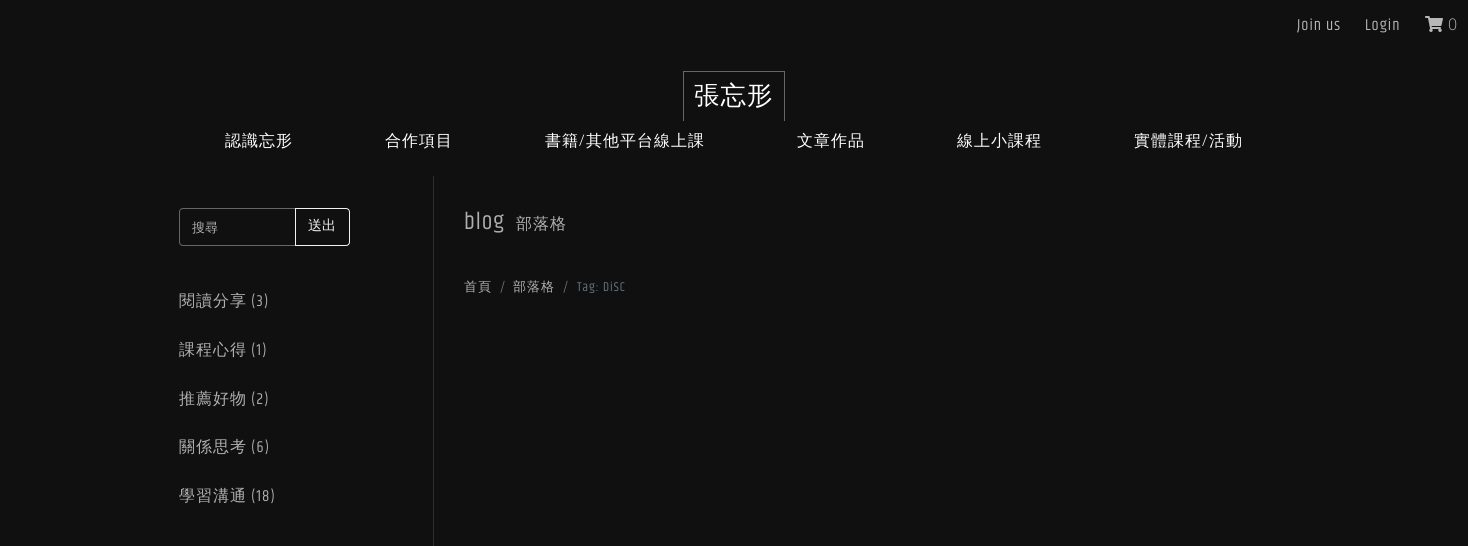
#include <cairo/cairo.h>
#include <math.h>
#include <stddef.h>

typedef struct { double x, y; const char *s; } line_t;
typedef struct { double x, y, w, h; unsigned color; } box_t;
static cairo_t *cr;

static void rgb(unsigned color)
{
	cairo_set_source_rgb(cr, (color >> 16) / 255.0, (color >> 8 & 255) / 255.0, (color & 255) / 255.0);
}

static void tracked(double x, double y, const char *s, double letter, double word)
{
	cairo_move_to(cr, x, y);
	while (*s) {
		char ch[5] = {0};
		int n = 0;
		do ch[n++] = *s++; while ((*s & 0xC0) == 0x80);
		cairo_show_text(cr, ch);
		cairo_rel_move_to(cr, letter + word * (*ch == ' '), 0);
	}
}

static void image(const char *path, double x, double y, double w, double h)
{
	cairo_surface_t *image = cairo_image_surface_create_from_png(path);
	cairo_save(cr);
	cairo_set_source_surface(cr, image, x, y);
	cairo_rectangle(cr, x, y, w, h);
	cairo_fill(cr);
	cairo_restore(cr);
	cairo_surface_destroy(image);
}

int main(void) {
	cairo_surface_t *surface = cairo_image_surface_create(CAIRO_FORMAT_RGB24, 1468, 546);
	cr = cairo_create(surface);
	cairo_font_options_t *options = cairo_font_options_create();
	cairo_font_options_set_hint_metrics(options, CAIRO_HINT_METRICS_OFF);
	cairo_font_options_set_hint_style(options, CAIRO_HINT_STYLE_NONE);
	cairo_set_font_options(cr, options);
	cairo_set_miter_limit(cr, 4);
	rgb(0x101010);
	cairo_paint(cr);
	image("img/1.png", 1425, 16, 18, 16);
	{
		static const box_t items[] = {
			{683, 71, 102, 1, 0x666666},
			{784, 71, 1, 50, 0x666666},
			{683, 71, 1, 50, 0x666666},
			{433, 176, 1, 370, 0x303030},
		};
		for (size_t i = 0; i < sizeof items / sizeof *items; i++) {
			rgb(items[i].color);
			cairo_rectangle(cr, items[i].x, items[i].y, items[i].w, items[i].h);
			cairo_fill(cr);
		}
	}
	cairo_new_path(cr);
	cairo_move_to(cr, 183, 208.5);
	cairo_line_to(cr, 295.5, 208.5);
	cairo_line_to(cr, 295.5, 245.5);
	cairo_line_to(cr, 183, 245.5);
	cairo_curve_to(cr, 181, 245.5, 179.5, 244, 179.5, 242);
	cairo_line_to(cr, 179.5, 212);
	cairo_curve_to(cr, 179.5, 210, 181, 208.5, 183, 208.5);
	cairo_close_path(cr);
	rgb(0x666666);
	cairo_set_line_width(cr, 1);
	cairo_stroke(cr);
	cairo_new_path(cr);
	cairo_move_to(cr, 295.5, 208.5);
	cairo_line_to(cr, 346, 208.5);
	cairo_curve_to(cr, 348, 208.5, 349.5, 210, 349.5, 212);
	cairo_line_to(cr, 349.5, 242);
	cairo_curve_to(cr, 349.5, 244, 348, 245.5, 346, 245.5);
	cairo_line_to(cr, 295.5, 245.5);
	cairo_close_path(cr);
	rgb(0xf2f2f2);
	cairo_stroke(cr);
	cairo_select_font_face(cr, "Khand", CAIRO_FONT_SLANT_NORMAL, CAIRO_FONT_WEIGHT_NORMAL);
	cairo_set_font_size(cr, 16);
	rgb(0xb7b7b7);
	tracked(1297, 30, "Join us", 1, 0);
	tracked(1365, 30, "Login", 1, 0);
	cairo_select_font_face(cr, "Open Sans Light", CAIRO_FONT_SLANT_NORMAL, CAIRO_FONT_WEIGHT_NORMAL);
	tracked(1448, 30, "0", 1, 0);
	cairo_select_font_face(cr, "WenQuanYi Zen Hei Medium", CAIRO_FONT_SLANT_NORMAL, CAIRO_FONT_WEIGHT_NORMAL);
	cairo_set_font_size(cr, 25.5);
	rgb(0xffffff);
	tracked(694, 104, "張忘形", 1, 0);
	cairo_set_font_size(cr, 16);
	{
		static const line_t items[] = {
			{225, 146, "認識忘形"},
			{385, 146, "合作項目"},
			{545, 146, "書籍"},
		};
		for (size_t i = 0; i < sizeof items / sizeof *items; i++) {
			tracked(items[i].x, items[i].y, items[i].s, 1, 0);
		}
	}
	cairo_select_font_face(cr, "Open Sans Light", CAIRO_FONT_SLANT_NORMAL, CAIRO_FONT_WEIGHT_NORMAL);
	tracked(579, 146, "/", 1, 0);
	cairo_select_font_face(cr, "WenQuanYi Zen Hei Medium", CAIRO_FONT_SLANT_NORMAL, CAIRO_FONT_WEIGHT_NORMAL);
	{
		static const line_t items[] = {
			{586, 146, "其他平台線上課"},
			{797, 146, "文章作品"},
			{957, 146, "線上小課程"},
			{1134, 146, "實體課程"},
		};
		for (size_t i = 0; i < sizeof items / sizeof *items; i++) {
			tracked(items[i].x, items[i].y, items[i].s, 1, 0);
		}
	}
	cairo_select_font_face(cr, "Open Sans Light", CAIRO_FONT_SLANT_NORMAL, CAIRO_FONT_WEIGHT_NORMAL);
	tracked(1202, 146, "/", 1, 0);
	cairo_select_font_face(cr, "WenQuanYi Zen Hei Medium", CAIRO_FONT_SLANT_NORMAL, CAIRO_FONT_WEIGHT_NORMAL);
	tracked(1209, 146, "活動", 1, 0);
	cairo_set_font_size(cr, 13);
	rgb(0xafafaf);
	cairo_move_to(cr, 192, 232);
	cairo_show_text(cr, "搜尋");
	cairo_set_font_size(cr, 14);
	rgb(0xf2f2f2);
	cairo_move_to(cr, 308, 230);
	cairo_show_text(cr, "送出");
	cairo_set_font_size(cr, 16);
	rgb(0xafafaf);
	tracked(179, 306, "閱讀分享", 1, 0);
	cairo_select_font_face(cr, "Khand", CAIRO_FONT_SLANT_NORMAL, CAIRO_FONT_WEIGHT_NORMAL);
	tracked(251, 306, "(3)", 1, 0);
	cairo_select_font_face(cr, "WenQuanYi Zen Hei Medium", CAIRO_FONT_SLANT_NORMAL, CAIRO_FONT_WEIGHT_NORMAL);
	tracked(179, 355, "課程心得", 1, 0);
	cairo_select_font_face(cr, "Khand", CAIRO_FONT_SLANT_NORMAL, CAIRO_FONT_WEIGHT_NORMAL);
	tracked(251, 355, "(1)", 1, 0);
	cairo_select_font_face(cr, "WenQuanYi Zen Hei Medium", CAIRO_FONT_SLANT_NORMAL, CAIRO_FONT_WEIGHT_NORMAL);
	tracked(179, 404, "推薦好物", 1, 0);
	cairo_select_font_face(cr, "Khand", CAIRO_FONT_SLANT_NORMAL, CAIRO_FONT_WEIGHT_NORMAL);
	tracked(251, 404, "(2)", 1, 0);
	cairo_select_font_face(cr, "WenQuanYi Zen Hei Medium", CAIRO_FONT_SLANT_NORMAL, CAIRO_FONT_WEIGHT_NORMAL);
	tracked(179, 452, "關係思考", 1, 0);
	cairo_select_font_face(cr, "Khand", CAIRO_FONT_SLANT_NORMAL, CAIRO_FONT_WEIGHT_NORMAL);
	tracked(251, 452, "(6)", 1, 0);
	cairo_select_font_face(cr, "WenQuanYi Zen Hei Medium", CAIRO_FONT_SLANT_NORMAL, CAIRO_FONT_WEIGHT_NORMAL);
	tracked(179, 501, "學習溝通", 1, 0);
	cairo_select_font_face(cr, "Khand", CAIRO_FONT_SLANT_NORMAL, CAIRO_FONT_WEIGHT_NORMAL);
	tracked(251, 501, "(18)", 1, 0);
	cairo_set_font_size(cr, 24);
	tracked(464, 229, "blog", 1, 0);
	cairo_select_font_face(cr, "WenQuanYi Zen Hei Medium", CAIRO_FONT_SLANT_NORMAL, CAIRO_FONT_WEIGHT_NORMAL);
	cairo_set_font_size(cr, 16);
	tracked(516, 229, "部落格", 1, 0);
	cairo_set_font_size(cr, 13);
	tracked(464, 291, "首頁", 1, 0);
	cairo_select_font_face(cr, "Khand", CAIRO_FONT_SLANT_NORMAL, CAIRO_FONT_WEIGHT_NORMAL);
	rgb(0x6c757d);
	tracked(500, 291, "/", 1, 0);
	cairo_select_font_face(cr, "WenQuanYi Zen Hei Medium", CAIRO_FONT_SLANT_NORMAL, CAIRO_FONT_WEIGHT_NORMAL);
	rgb(0xafafaf);
	tracked(513, 291, "部落格", 1, 0);
	cairo_select_font_face(cr, "Khand", CAIRO_FONT_SLANT_NORMAL, CAIRO_FONT_WEIGHT_NORMAL);
	rgb(0x6c757d);
	tracked(563, 291, "/", 1, 0);
	tracked(577, 291, "Tag: DiSC", 1, 0);
	cairo_surface_write_to_png(surface, "page.png");
	cairo_font_options_destroy(options);
	cairo_destroy(cr);
	cairo_surface_destroy(surface);
	return 0;
}
